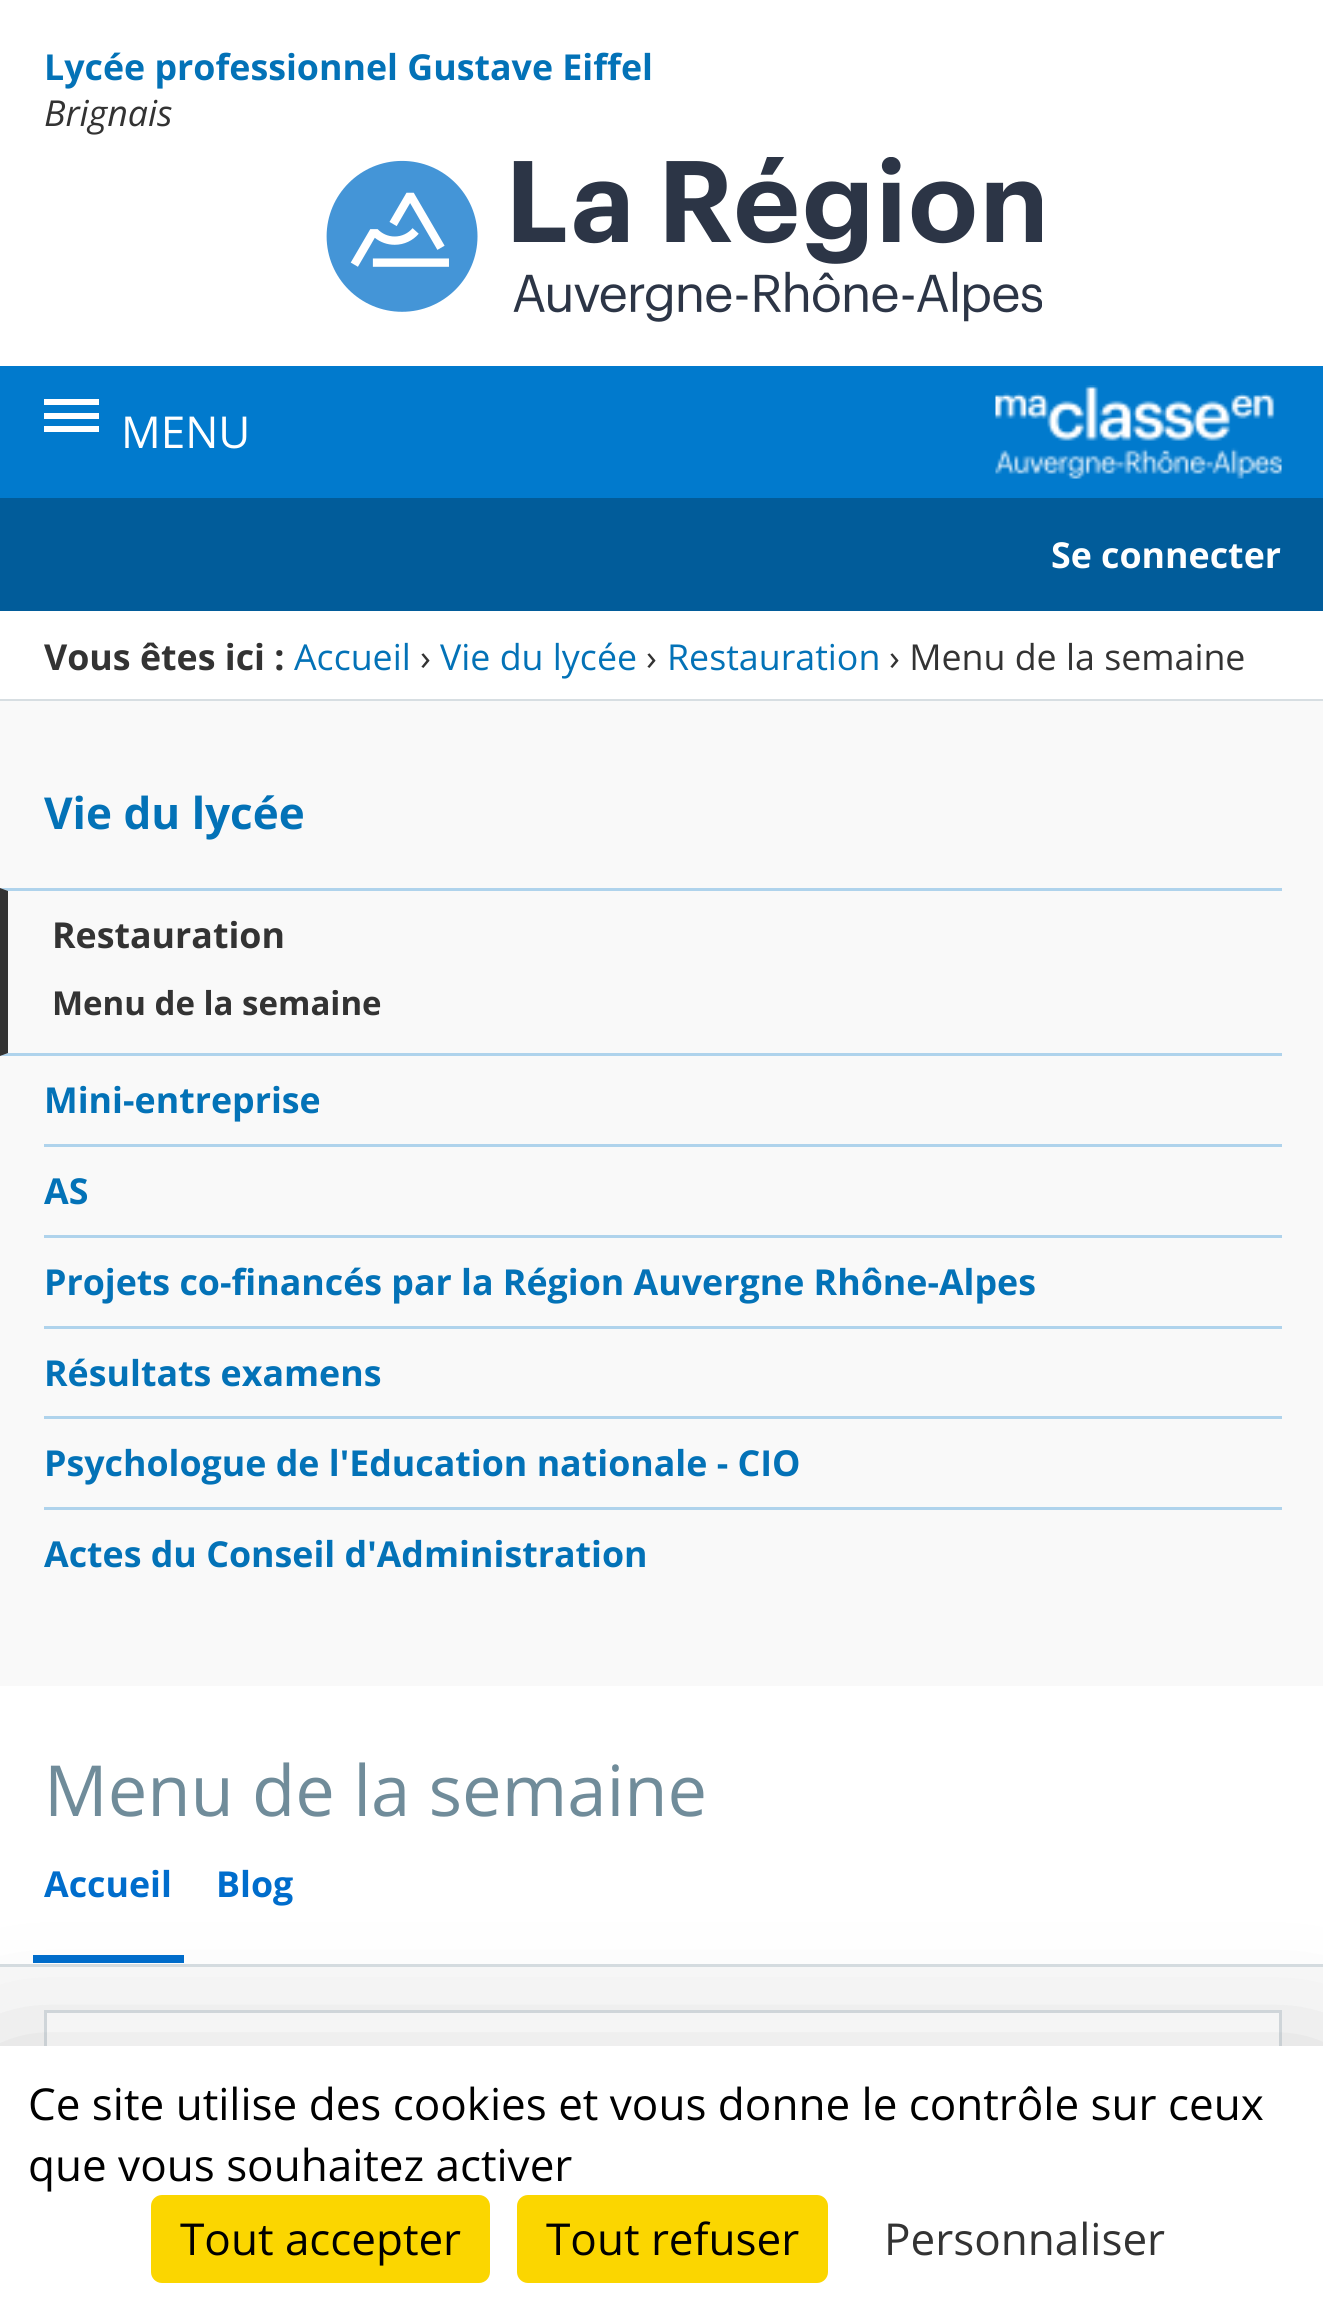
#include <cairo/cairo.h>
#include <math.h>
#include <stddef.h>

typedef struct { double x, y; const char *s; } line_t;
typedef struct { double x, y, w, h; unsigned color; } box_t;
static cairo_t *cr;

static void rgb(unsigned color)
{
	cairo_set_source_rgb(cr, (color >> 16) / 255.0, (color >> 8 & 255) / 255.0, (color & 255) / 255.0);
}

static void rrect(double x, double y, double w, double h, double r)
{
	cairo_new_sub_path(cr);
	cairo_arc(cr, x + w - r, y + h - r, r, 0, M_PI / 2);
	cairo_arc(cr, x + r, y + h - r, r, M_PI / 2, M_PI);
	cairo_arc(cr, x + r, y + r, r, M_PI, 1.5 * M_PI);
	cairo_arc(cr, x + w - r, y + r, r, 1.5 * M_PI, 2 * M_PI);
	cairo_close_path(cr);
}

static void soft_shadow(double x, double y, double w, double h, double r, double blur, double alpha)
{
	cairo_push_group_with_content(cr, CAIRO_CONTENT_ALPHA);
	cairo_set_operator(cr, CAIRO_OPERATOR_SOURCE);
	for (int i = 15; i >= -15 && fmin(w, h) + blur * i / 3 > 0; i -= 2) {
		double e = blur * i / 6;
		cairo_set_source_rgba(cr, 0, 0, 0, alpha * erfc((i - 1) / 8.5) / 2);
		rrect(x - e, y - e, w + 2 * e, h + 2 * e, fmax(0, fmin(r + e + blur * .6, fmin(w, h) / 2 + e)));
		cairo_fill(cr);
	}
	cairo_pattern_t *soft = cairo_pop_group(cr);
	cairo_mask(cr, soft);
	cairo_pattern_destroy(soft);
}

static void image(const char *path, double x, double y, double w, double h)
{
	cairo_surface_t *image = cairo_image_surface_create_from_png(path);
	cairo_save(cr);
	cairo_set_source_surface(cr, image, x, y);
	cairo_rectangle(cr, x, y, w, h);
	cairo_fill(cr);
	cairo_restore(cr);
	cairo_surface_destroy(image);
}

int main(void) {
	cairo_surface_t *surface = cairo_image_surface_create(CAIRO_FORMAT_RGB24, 1323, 2309);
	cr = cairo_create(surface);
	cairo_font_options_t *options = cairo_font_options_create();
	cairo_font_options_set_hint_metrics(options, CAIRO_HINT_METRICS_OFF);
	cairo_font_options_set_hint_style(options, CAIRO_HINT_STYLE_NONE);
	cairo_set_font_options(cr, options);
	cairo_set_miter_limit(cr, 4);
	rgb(0xffffff);
	cairo_paint(cr);
	image("img/1.png", 326, 157, 716, 165);
	rgb(0x017acd);
	cairo_rectangle(cr, 0, 366, 1323, 132);
	cairo_fill(cr);
	image("img/2.png", 995, 385, 287, 94);
	{
		static const box_t items[] = {
			{44, 399, 55, 6, 0xffffff},
			{44, 413, 55, 6, 0xffffff},
			{44, 426, 55, 6, 0xffffff},
			{0, 498, 1323, 113, 0x015c9a},
			{0, 699, 1323, 2, 0xd7dee2},
			{0, 701, 1323, 1345, 0xf9f9f9},
		};
		for (size_t i = 0; i < sizeof items / sizeof *items; i++) {
			rgb(items[i].color);
			cairo_rectangle(cr, items[i].x, items[i].y, items[i].w, items[i].h);
			cairo_fill(cr);
		}
	}
	rgb(0xafd3ec);
	cairo_new_path(cr);
	cairo_move_to(cr, 0, 888);
	cairo_line_to(cr, 1282, 888);
	cairo_line_to(cr, 1282, 891);
	cairo_line_to(cr, 8, 891);
	cairo_close_path(cr);
	cairo_fill(cr);
	cairo_new_path(cr);
	cairo_move_to(cr, 1282, 1056);
	cairo_line_to(cr, 0, 1056);
	cairo_line_to(cr, 8, 1053);
	cairo_line_to(cr, 1282, 1053);
	cairo_close_path(cr);
	cairo_fill(cr);
	rgb(0x333333);
	cairo_new_path(cr);
	cairo_move_to(cr, 0, 1056);
	cairo_line_to(cr, 0, 888);
	cairo_line_to(cr, 8, 891);
	cairo_line_to(cr, 8, 1053);
	cairo_close_path(cr);
	cairo_fill(cr);
	{
		static const box_t items[] = {
			{44, 1144, 1238, 3, 0xafd3ec},
			{44, 1235, 1238, 3, 0xafd3ec},
			{44, 1326, 1238, 3, 0xafd3ec},
			{44, 1416, 1238, 3, 0xafd3ec},
			{44, 1507, 1238, 3, 0xafd3ec},
			{0, 1686, 1323, 278, 0xffffff},
			{0, 1964, 1323, 3, 0xd7dee2},
			{33, 1955, 151, 8, 0x006dcc},
			{47, 2013, 1232, 33, 0xffffff},
		};
		for (size_t i = 0; i < sizeof items / sizeof *items; i++) {
			rgb(items[i].color);
			cairo_rectangle(cr, items[i].x, items[i].y, items[i].w, items[i].h);
			cairo_fill(cr);
		}
	}
	cairo_rectangle(cr, 45.5, 2011.5, 1235, 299);
	rgb(0xd7dee2);
	cairo_set_line_width(cr, 3);
	cairo_stroke(cr);
	rgb(0x000000);
	soft_shadow(0, 2101, 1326, 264, 0, 82.5, 0.25);
	rgb(0xffffff);
	cairo_rectangle(cr, 0, 2046, 1323, 263);
	cairo_fill(cr);
	rgb(0xfbd600);
	rrect(151, 2195, 339, 88, 11);
	cairo_fill(cr);
	rrect(517, 2195, 311, 88, 11);
	cairo_fill(cr);
	cairo_select_font_face(cr, "Open Sans", CAIRO_FONT_SLANT_NORMAL, CAIRO_FONT_WEIGHT_BOLD);
	cairo_set_font_size(cr, 35.75);
	rgb(0x0372b7);
	cairo_move_to(cr, 44, 80);
	cairo_show_text(cr, "Lycée professionnel Gustave Eiffel");
	cairo_select_font_face(cr, "Open Sans", CAIRO_FONT_SLANT_ITALIC, CAIRO_FONT_WEIGHT_NORMAL);
	rgb(0x333333);
	cairo_move_to(cr, 44, 126);
	cairo_show_text(cr, "Brignais");
	cairo_select_font_face(cr, "Open Sans", CAIRO_FONT_SLANT_NORMAL, CAIRO_FONT_WEIGHT_NORMAL);
	cairo_set_font_size(cr, 44);
	rgb(0xffffff);
	cairo_move_to(cr, 121, 448);
	cairo_show_text(cr, "MENU");
	cairo_select_font_face(cr, "Open Sans", CAIRO_FONT_SLANT_NORMAL, CAIRO_FONT_WEIGHT_BOLD);
	cairo_set_font_size(cr, 35.75);
	cairo_move_to(cr, 1051, 568);
	cairo_show_text(cr, "Se connecter");
	rgb(0x333333);
	cairo_move_to(cr, 44, 670);
	cairo_show_text(cr, "Vous êtes ici :");
	cairo_select_font_face(cr, "Open Sans", CAIRO_FONT_SLANT_NORMAL, CAIRO_FONT_WEIGHT_NORMAL);
	rgb(0x0372b7);
	cairo_move_to(cr, 294, 670);
	cairo_show_text(cr, "Accueil");
	rgb(0x333333);
	cairo_move_to(cr, 420, 670);
	cairo_show_text(cr, "›");
	rgb(0x0372b7);
	cairo_move_to(cr, 440, 670);
	cairo_show_text(cr, "Vie du lycée");
	rgb(0x333333);
	cairo_move_to(cr, 646, 670);
	cairo_show_text(cr, "›");
	rgb(0x0372b7);
	cairo_move_to(cr, 667, 670);
	cairo_show_text(cr, "Restauration");
	rgb(0x333333);
	cairo_move_to(cr, 889, 670);
	cairo_show_text(cr, "› Menu de la semaine");
	cairo_select_font_face(cr, "Open Sans", CAIRO_FONT_SLANT_NORMAL, CAIRO_FONT_WEIGHT_BOLD);
	cairo_set_font_size(cr, 44);
	rgb(0x0372b7);
	cairo_move_to(cr, 44, 829);
	cairo_show_text(cr, "Vie du lycée");
	cairo_set_font_size(cr, 35.75);
	rgb(0x333333);
	cairo_move_to(cr, 52, 948);
	cairo_show_text(cr, "Restauration");
	cairo_set_font_size(cr, 33);
	cairo_move_to(cr, 52, 1015);
	cairo_show_text(cr, "Menu de la semaine");
	cairo_set_font_size(cr, 35.75);
	rgb(0x0372b7);
	{
		static const line_t items[] = {
			{44, 1113, "Mini-entreprise"},
			{44, 1204, "AS"},
			{44, 1295, "Projets co-financés par la Région Auvergne Rhône-Alpes"},
			{44, 1386, "Résultats examens"},
			{44, 1476, "Psychologue de l'Education nationale - CIO"},
			{44, 1567, "Actes du Conseil d'Administration"},
		};
		for (size_t i = 0; i < sizeof items / sizeof *items; i++) {
			cairo_move_to(cr, items[i].x, items[i].y);
			cairo_show_text(cr, items[i].s);
		}
	}
	cairo_select_font_face(cr, "Open Sans", CAIRO_FONT_SLANT_NORMAL, CAIRO_FONT_WEIGHT_NORMAL);
	cairo_set_font_size(cr, 70.5);
	rgb(0x708c9a);
	cairo_move_to(cr, 44, 1816);
	cairo_show_text(cr, "Menu de la semaine");
	cairo_select_font_face(cr, "Open Sans", CAIRO_FONT_SLANT_NORMAL, CAIRO_FONT_WEIGHT_BOLD);
	cairo_set_font_size(cr, 35.75);
	rgb(0x006dcc);
	cairo_move_to(cr, 44, 1897);
	cairo_show_text(cr, "Accueil");
	cairo_move_to(cr, 216, 1897);
	cairo_show_text(cr, "Blog");
	cairo_select_font_face(cr, "Open Sans", CAIRO_FONT_SLANT_NORMAL, CAIRO_FONT_WEIGHT_NORMAL);
	cairo_set_font_size(cr, 44);
	rgb(0x000000);
	{
		static const line_t items[] = {
			{28, 2120, "Ce site utilise des cookies et vous donne le contrôle sur ceux"},
			{28, 2181, "que vous souhaitez activer"},
			{180, 2255, "Tout accepter"},
			{546, 2255, "Tout refuser"},
		};
		for (size_t i = 0; i < sizeof items / sizeof *items; i++) {
			cairo_move_to(cr, items[i].x, items[i].y);
			cairo_show_text(cr, items[i].s);
		}
	}
	rgb(0x333333);
	cairo_move_to(cr, 884, 2255);
	cairo_show_text(cr, "Personnaliser");
	cairo_surface_write_to_png(surface, "page.png");
	cairo_font_options_destroy(options);
	cairo_destroy(cr);
	cairo_surface_destroy(surface);
	return 0;
}
